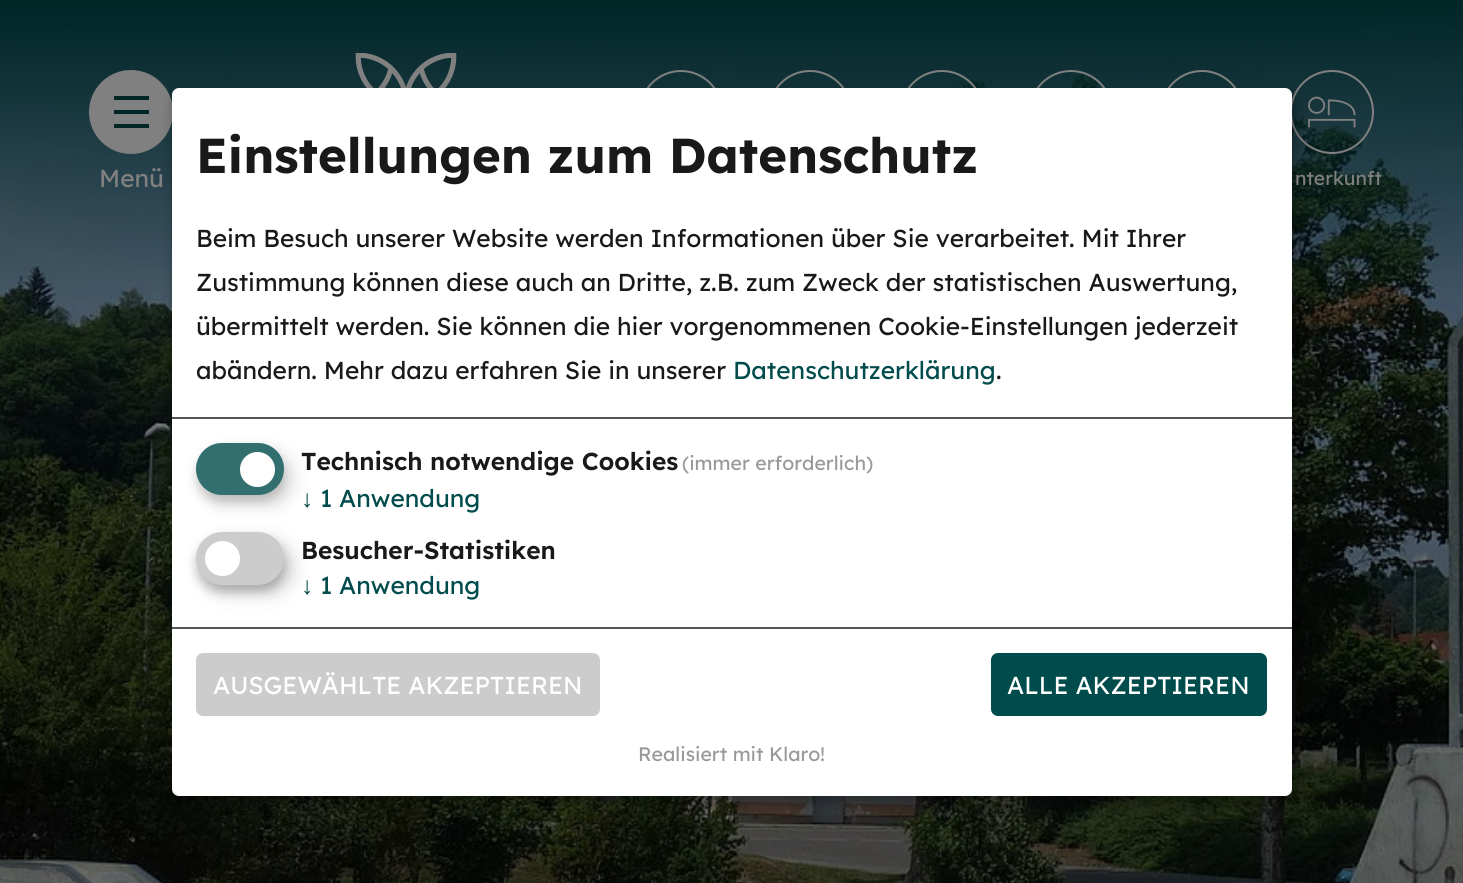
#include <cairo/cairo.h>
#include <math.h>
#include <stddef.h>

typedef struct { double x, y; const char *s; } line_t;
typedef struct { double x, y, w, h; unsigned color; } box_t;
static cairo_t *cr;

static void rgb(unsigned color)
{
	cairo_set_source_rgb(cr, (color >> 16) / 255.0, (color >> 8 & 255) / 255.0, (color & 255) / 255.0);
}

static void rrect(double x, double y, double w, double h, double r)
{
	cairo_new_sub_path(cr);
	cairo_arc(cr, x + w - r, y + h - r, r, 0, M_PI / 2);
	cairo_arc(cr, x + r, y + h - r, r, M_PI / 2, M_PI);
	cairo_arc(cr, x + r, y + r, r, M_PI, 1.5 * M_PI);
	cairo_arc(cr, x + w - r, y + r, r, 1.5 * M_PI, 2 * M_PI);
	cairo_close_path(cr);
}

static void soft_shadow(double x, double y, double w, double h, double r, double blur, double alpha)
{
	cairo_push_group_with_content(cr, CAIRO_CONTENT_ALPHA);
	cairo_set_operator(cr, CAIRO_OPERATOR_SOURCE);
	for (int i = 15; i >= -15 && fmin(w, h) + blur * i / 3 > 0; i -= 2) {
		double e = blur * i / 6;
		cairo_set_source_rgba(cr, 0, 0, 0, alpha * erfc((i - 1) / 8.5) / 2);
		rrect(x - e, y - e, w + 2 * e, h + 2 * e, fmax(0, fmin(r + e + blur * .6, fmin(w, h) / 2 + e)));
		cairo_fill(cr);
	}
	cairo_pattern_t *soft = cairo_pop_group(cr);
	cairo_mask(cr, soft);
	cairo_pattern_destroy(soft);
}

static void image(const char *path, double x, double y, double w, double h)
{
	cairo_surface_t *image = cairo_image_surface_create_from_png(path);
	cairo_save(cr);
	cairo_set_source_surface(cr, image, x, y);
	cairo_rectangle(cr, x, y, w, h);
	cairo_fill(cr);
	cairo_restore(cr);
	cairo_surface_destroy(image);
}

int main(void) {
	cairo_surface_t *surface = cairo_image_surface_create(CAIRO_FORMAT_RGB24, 1463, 883);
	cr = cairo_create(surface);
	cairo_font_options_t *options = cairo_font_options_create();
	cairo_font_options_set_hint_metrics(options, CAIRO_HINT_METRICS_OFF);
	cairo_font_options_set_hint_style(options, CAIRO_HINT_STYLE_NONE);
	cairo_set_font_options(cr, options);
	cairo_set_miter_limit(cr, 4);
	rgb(0xffffff);
	cairo_paint(cr);
	image("img/1.png", 0, 0, 1463, 883);
	image("img/2.png", 355, 53, 102, 35);
	rgb(0x808080);
	cairo_arc(cr, 131, 112, 42, 0, 2 * M_PI);
	cairo_fill(cr);
	cairo_arc(cr, 681, 112, 41, 0, 2 * M_PI);
	cairo_stroke(cr);
	cairo_arc(cr, 810, 112, 41, 0, 2 * M_PI);
	cairo_stroke(cr);
	cairo_arc(cr, 942, 112, 41, 0, 2 * M_PI);
	cairo_stroke(cr);
	cairo_arc(cr, 1071, 112, 41, 0, 2 * M_PI);
	cairo_stroke(cr);
	cairo_arc(cr, 1202, 112, 41, 0, 2 * M_PI);
	cairo_stroke(cr);
	cairo_arc(cr, 1332, 112, 41, 0, 2 * M_PI);
	cairo_stroke(cr);
	image("img/3.png", 1308, 96, 48, 32);
	rgb(0x000000);
	soft_shadow(180, 96, 1120, 709, 7, 9, 0.19);
	soft_shadow(172, 95, 1120, 708, 7, 5, 0.2);
	rgb(0xffffff);
	rrect(172, 88, 1120, 708, 7);
	cairo_fill(cr);
	rgb(0x555555);
	cairo_rectangle(cr, 172, 417, 1120, 2);
	cairo_fill(cr);
	rgb(0x000000);
	soft_shadow(205, 452, 87, 52, 26, 9, 0.15);
	rgb(0x333333);
	soft_shadow(196, 450, 88, 52, 26, 5, 0.2);
	rgb(0x336f6f);
	rrect(196, 443, 88, 52, 26);
	cairo_fill(cr);
	rgb(0xffffff);
	cairo_arc(cr, 257.5, 469.5, 17.5, 0, 2 * M_PI);
	cairo_fill(cr);
	rgb(0x000000);
	soft_shadow(205, 541, 87, 52, 26, 9, 0.19);
	soft_shadow(196, 539, 88, 53, 26.5, 5, 0.2);
	rgb(0xcccccc);
	rrect(196, 532, 88, 53, 26.5);
	cairo_fill(cr);
	rgb(0xffffff);
	cairo_arc(cr, 222.5, 558.5, 17.5, 0, 2 * M_PI);
	cairo_fill(cr);
	rgb(0x555555);
	cairo_rectangle(cr, 172, 627, 1120, 2);
	cairo_fill(cr);
	rgb(0xcccccc);
	rrect(196, 653, 404, 63, 7);
	cairo_fill(cr);
	rgb(0x004b4b);
	rrect(991, 653, 276, 63, 7);
	cairo_fill(cr);
	{
		static const box_t items[] = {
			{114, 96, 35, 4, 0x002626},
			{114, 110, 35, 4, 0x002626},
			{114, 124, 35, 4, 0x002626},
		};
		for (size_t i = 0; i < sizeof items / sizeof *items; i++) {
			rgb(items[i].color);
			cairo_rectangle(cr, items[i].x, items[i].y, items[i].w, items[i].h);
			cairo_fill(cr);
		}
	}
	cairo_select_font_face(cr, "Lexend", CAIRO_FONT_SLANT_NORMAL, CAIRO_FONT_WEIGHT_BOLD);
	cairo_set_font_size(cr, 49);
	rgb(0x191919);
	cairo_move_to(cr, 196, 173);
	cairo_show_text(cr, "Einstellungen zum Datenschutz");
	cairo_select_font_face(cr, "Lexend", CAIRO_FONT_SLANT_NORMAL, CAIRO_FONT_WEIGHT_NORMAL);
	cairo_set_font_size(cr, 24.5);
	{
		static const line_t items[] = {
			{196, 247, "Beim Besuch unserer Website werden Informationen über Sie verarbeitet. Mit Ihrer"},
			{196, 291, "Zustimmung können diese auch an Dritte, z.B. zum Zweck der statistischen Auswertung,"},
			{196, 335, "übermittelt werden. Sie können die hier vorgenommenen Cookie-Einstellungen jederzeit"},
			{196, 379, "abändern. Mehr dazu erfahren Sie in unserer"},
		};
		for (size_t i = 0; i < sizeof items / sizeof *items; i++) {
			cairo_move_to(cr, items[i].x, items[i].y);
			cairo_show_text(cr, items[i].s);
		}
	}
	rgb(0x004b4b);
	cairo_move_to(cr, 733, 379);
	cairo_show_text(cr, "Datenschutzerklärung");
	rgb(0x191919);
	cairo_move_to(cr, 996, 379);
	cairo_show_text(cr, ".");
	cairo_select_font_face(cr, "Lexend SemiBold", CAIRO_FONT_SLANT_NORMAL, CAIRO_FONT_WEIGHT_NORMAL);
	cairo_move_to(cr, 301, 470);
	cairo_show_text(cr, "Technisch notwendige Cookies");
	cairo_select_font_face(cr, "Lexend", CAIRO_FONT_SLANT_NORMAL, CAIRO_FONT_WEIGHT_NORMAL);
	cairo_set_font_size(cr, 19.5);
	rgb(0x999999);
	cairo_move_to(cr, 682, 470);
	cairo_show_text(cr, "(immer erforderlich)");
	cairo_select_font_face(cr, "Liberation Sans", CAIRO_FONT_SLANT_NORMAL, CAIRO_FONT_WEIGHT_NORMAL);
	cairo_set_font_size(cr, 24.5);
	rgb(0x004b4b);
	cairo_move_to(cr, 301, 507);
	cairo_show_text(cr, "↓");
	cairo_select_font_face(cr, "Lexend", CAIRO_FONT_SLANT_NORMAL, CAIRO_FONT_WEIGHT_NORMAL);
	cairo_move_to(cr, 320, 507);
	cairo_show_text(cr, "1 Anwendung");
	cairo_select_font_face(cr, "Lexend SemiBold", CAIRO_FONT_SLANT_NORMAL, CAIRO_FONT_WEIGHT_NORMAL);
	rgb(0x191919);
	cairo_move_to(cr, 301, 559);
	cairo_show_text(cr, "Besucher-Statistiken");
	cairo_select_font_face(cr, "Liberation Sans", CAIRO_FONT_SLANT_NORMAL, CAIRO_FONT_WEIGHT_NORMAL);
	rgb(0x004b4b);
	cairo_move_to(cr, 301, 594);
	cairo_show_text(cr, "↓");
	cairo_select_font_face(cr, "Lexend", CAIRO_FONT_SLANT_NORMAL, CAIRO_FONT_WEIGHT_NORMAL);
	cairo_move_to(cr, 320, 594);
	cairo_show_text(cr, "1 Anwendung");
	rgb(0xffffff);
	cairo_move_to(cr, 213, 694);
	cairo_show_text(cr, "AUSGEWÄHLTE AKZEPTIEREN");
	cairo_move_to(cr, 1007, 694);
	cairo_show_text(cr, "ALLE AKZEPTIEREN");
	cairo_set_font_size(cr, 19.5);
	rgb(0x999999);
	cairo_move_to(cr, 638, 761);
	cairo_show_text(cr, "Realisiert mit Klaro!");
	cairo_set_font_size(cr, 24.5);
	rgb(0x808080);
	cairo_move_to(cr, 99, 187);
	cairo_show_text(cr, "Menü");
	cairo_set_font_size(cr, 19.25);
	cairo_move_to(cr, 1295, 185);
	cairo_show_text(cr, "nterkunft");
	cairo_surface_write_to_png(surface, "page.png");
	cairo_font_options_destroy(options);
	cairo_destroy(cr);
	cairo_surface_destroy(surface);
	return 0;
}
